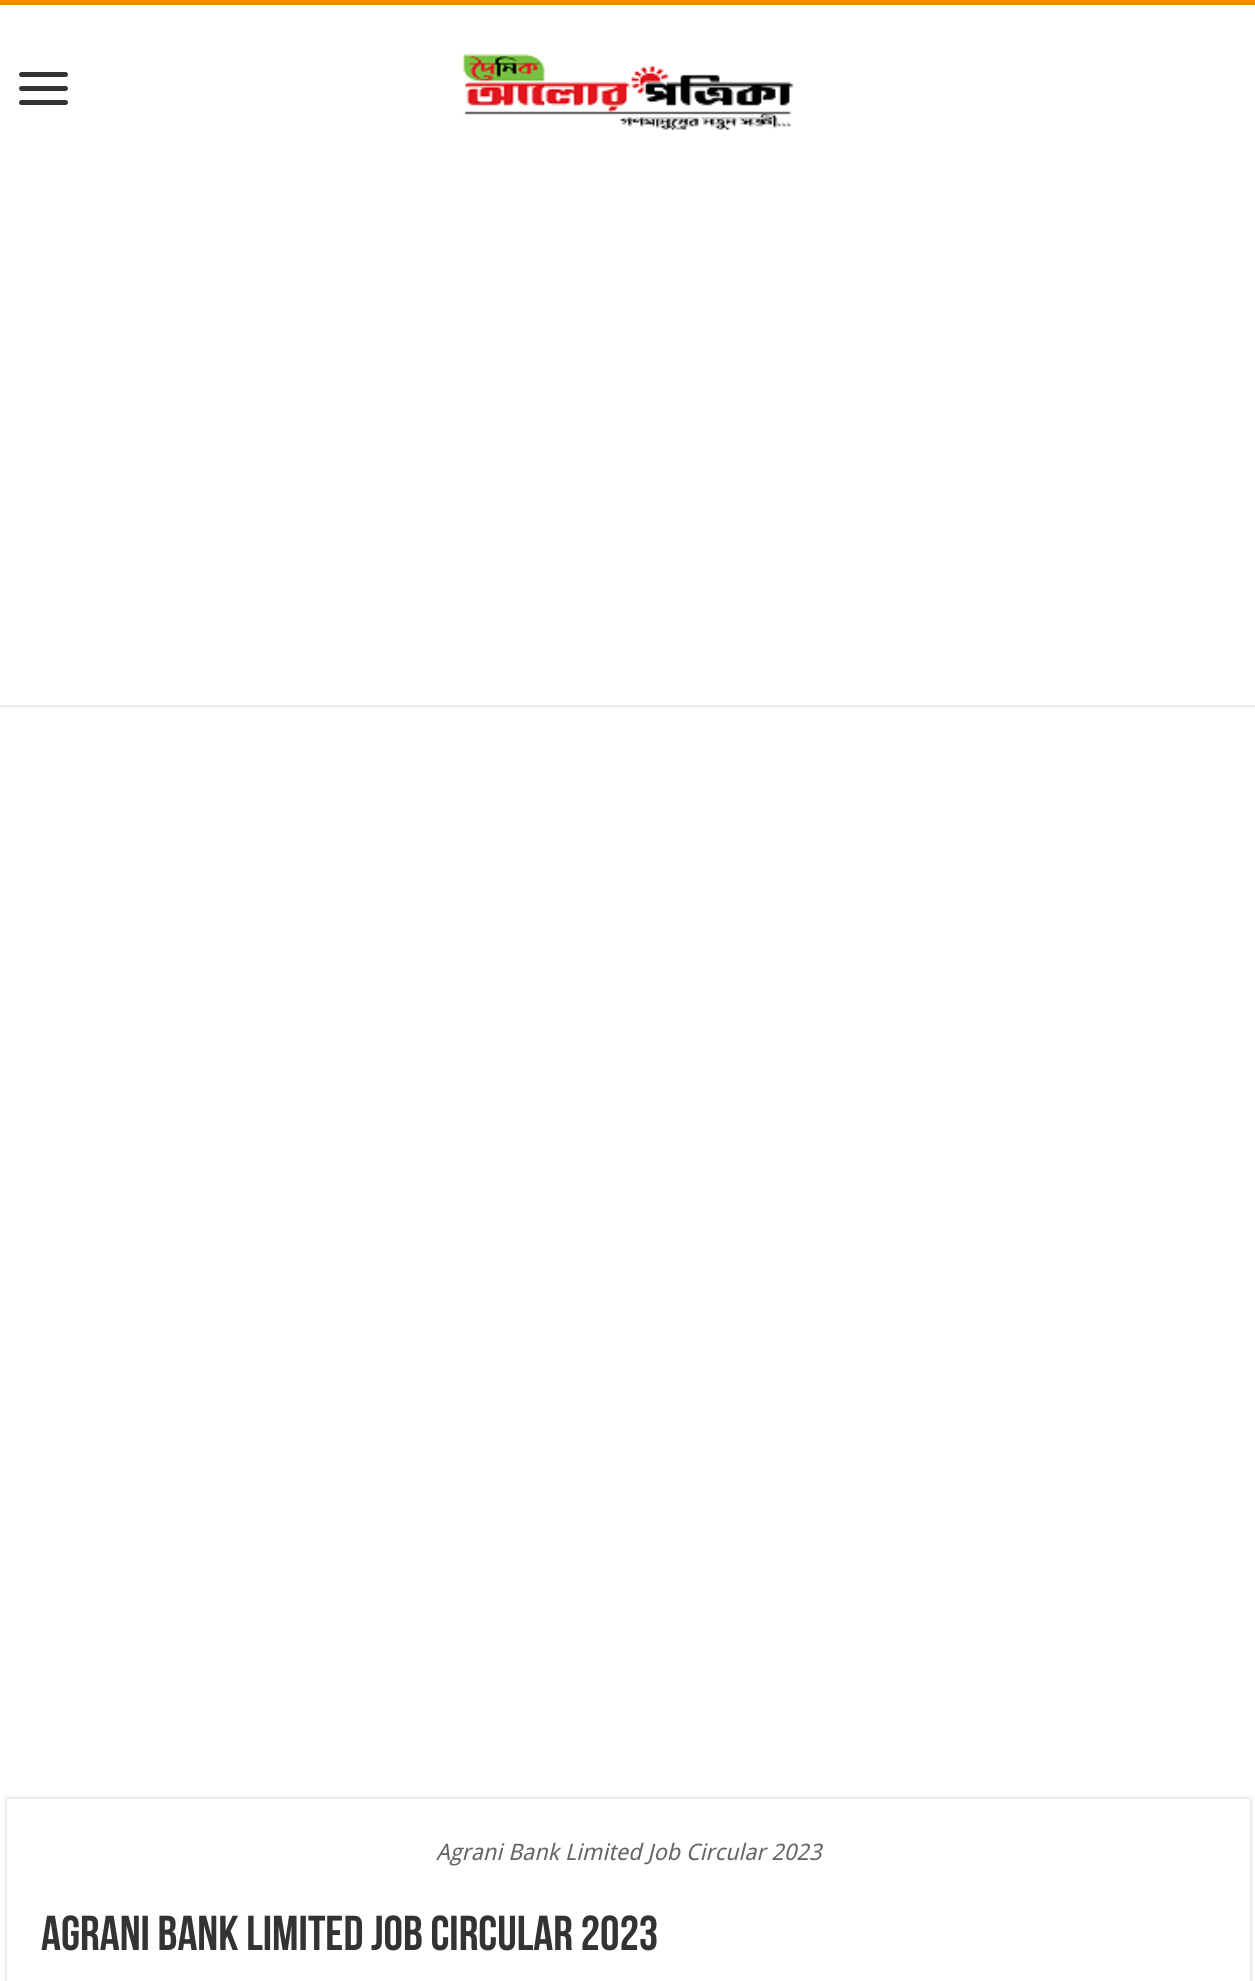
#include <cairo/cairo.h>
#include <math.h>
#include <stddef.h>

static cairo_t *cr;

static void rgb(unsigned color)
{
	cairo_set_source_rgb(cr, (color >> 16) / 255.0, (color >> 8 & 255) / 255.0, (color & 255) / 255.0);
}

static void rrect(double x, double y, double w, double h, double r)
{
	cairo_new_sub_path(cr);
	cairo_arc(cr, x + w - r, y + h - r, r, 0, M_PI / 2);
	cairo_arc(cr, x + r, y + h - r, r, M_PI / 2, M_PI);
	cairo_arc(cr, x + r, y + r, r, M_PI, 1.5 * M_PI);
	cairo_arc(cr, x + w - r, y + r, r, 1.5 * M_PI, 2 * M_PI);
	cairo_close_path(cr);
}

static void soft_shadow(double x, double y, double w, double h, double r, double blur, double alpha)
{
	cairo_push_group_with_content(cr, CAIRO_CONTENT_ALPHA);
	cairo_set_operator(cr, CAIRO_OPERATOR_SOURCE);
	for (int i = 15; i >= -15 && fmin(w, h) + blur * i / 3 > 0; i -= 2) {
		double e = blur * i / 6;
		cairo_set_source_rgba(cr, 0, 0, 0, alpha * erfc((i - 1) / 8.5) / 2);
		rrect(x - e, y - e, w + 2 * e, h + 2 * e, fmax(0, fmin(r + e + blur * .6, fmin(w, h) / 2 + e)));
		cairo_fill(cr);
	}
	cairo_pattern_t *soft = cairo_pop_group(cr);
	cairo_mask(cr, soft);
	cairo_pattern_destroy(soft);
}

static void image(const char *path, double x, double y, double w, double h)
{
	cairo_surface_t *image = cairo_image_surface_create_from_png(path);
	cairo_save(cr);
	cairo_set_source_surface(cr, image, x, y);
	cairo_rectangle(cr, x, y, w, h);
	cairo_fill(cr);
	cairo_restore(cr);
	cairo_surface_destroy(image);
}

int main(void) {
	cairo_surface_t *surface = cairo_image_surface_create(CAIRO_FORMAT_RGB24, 1255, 1981);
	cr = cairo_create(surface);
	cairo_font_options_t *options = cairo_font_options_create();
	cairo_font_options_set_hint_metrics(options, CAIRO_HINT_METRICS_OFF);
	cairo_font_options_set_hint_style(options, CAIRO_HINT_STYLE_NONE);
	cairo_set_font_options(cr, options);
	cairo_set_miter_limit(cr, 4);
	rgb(0xffffff);
	cairo_paint(cr);
	cairo_save(cr);
	cairo_rectangle(cr, 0, 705, 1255, 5);
	cairo_clip(cr);
	rgb(0xcacaca);
	soft_shadow(0, 0, 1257, 705, 0, 2.5, 1);
	cairo_restore(cr);
	rgb(0xf88c00);
	cairo_rectangle(cr, 0, 0, 1255, 5);
	cairo_fill(cr);
	rgb(0x333333);
	rrect(19, 72, 49, 5, 2.5);
	cairo_fill(cr);
	rrect(19, 86, 49, 5, 2.5);
	cairo_fill(cr);
	rrect(19, 100, 49, 5, 2.5);
	cairo_fill(cr);
	image("img/1.png", 463, 53, 331, 77);
	rgb(0xcacaca);
	soft_shadow(7, 1799, 1243, 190, 0, 2.5, 1);
	rgb(0xffffff);
	cairo_rectangle(cr, 7, 1799, 1243, 182);
	cairo_fill(cr);
	cairo_select_font_face(cr, "Droid Sans", CAIRO_FONT_SLANT_ITALIC, CAIRO_FONT_WEIGHT_NORMAL);
	cairo_set_font_size(cr, 22.75);
	rgb(0x666666);
	cairo_move_to(cr, 436, 1860);
	cairo_show_text(cr, "Agrani Bank Limited Job Circular 2023");
	cairo_select_font_face(cr, "Bebas Neue", CAIRO_FONT_SLANT_NORMAL, CAIRO_FONT_WEIGHT_BOLD);
	cairo_set_font_size(cr, 49);
	rgb(0x333333);
	cairo_move_to(cr, 41, 1950);
	cairo_show_text(cr, "Agrani Bank Limited Job Circular 2023");
	cairo_surface_write_to_png(surface, "page.png");
	cairo_font_options_destroy(options);
	cairo_destroy(cr);
	cairo_surface_destroy(surface);
	return 0;
}
